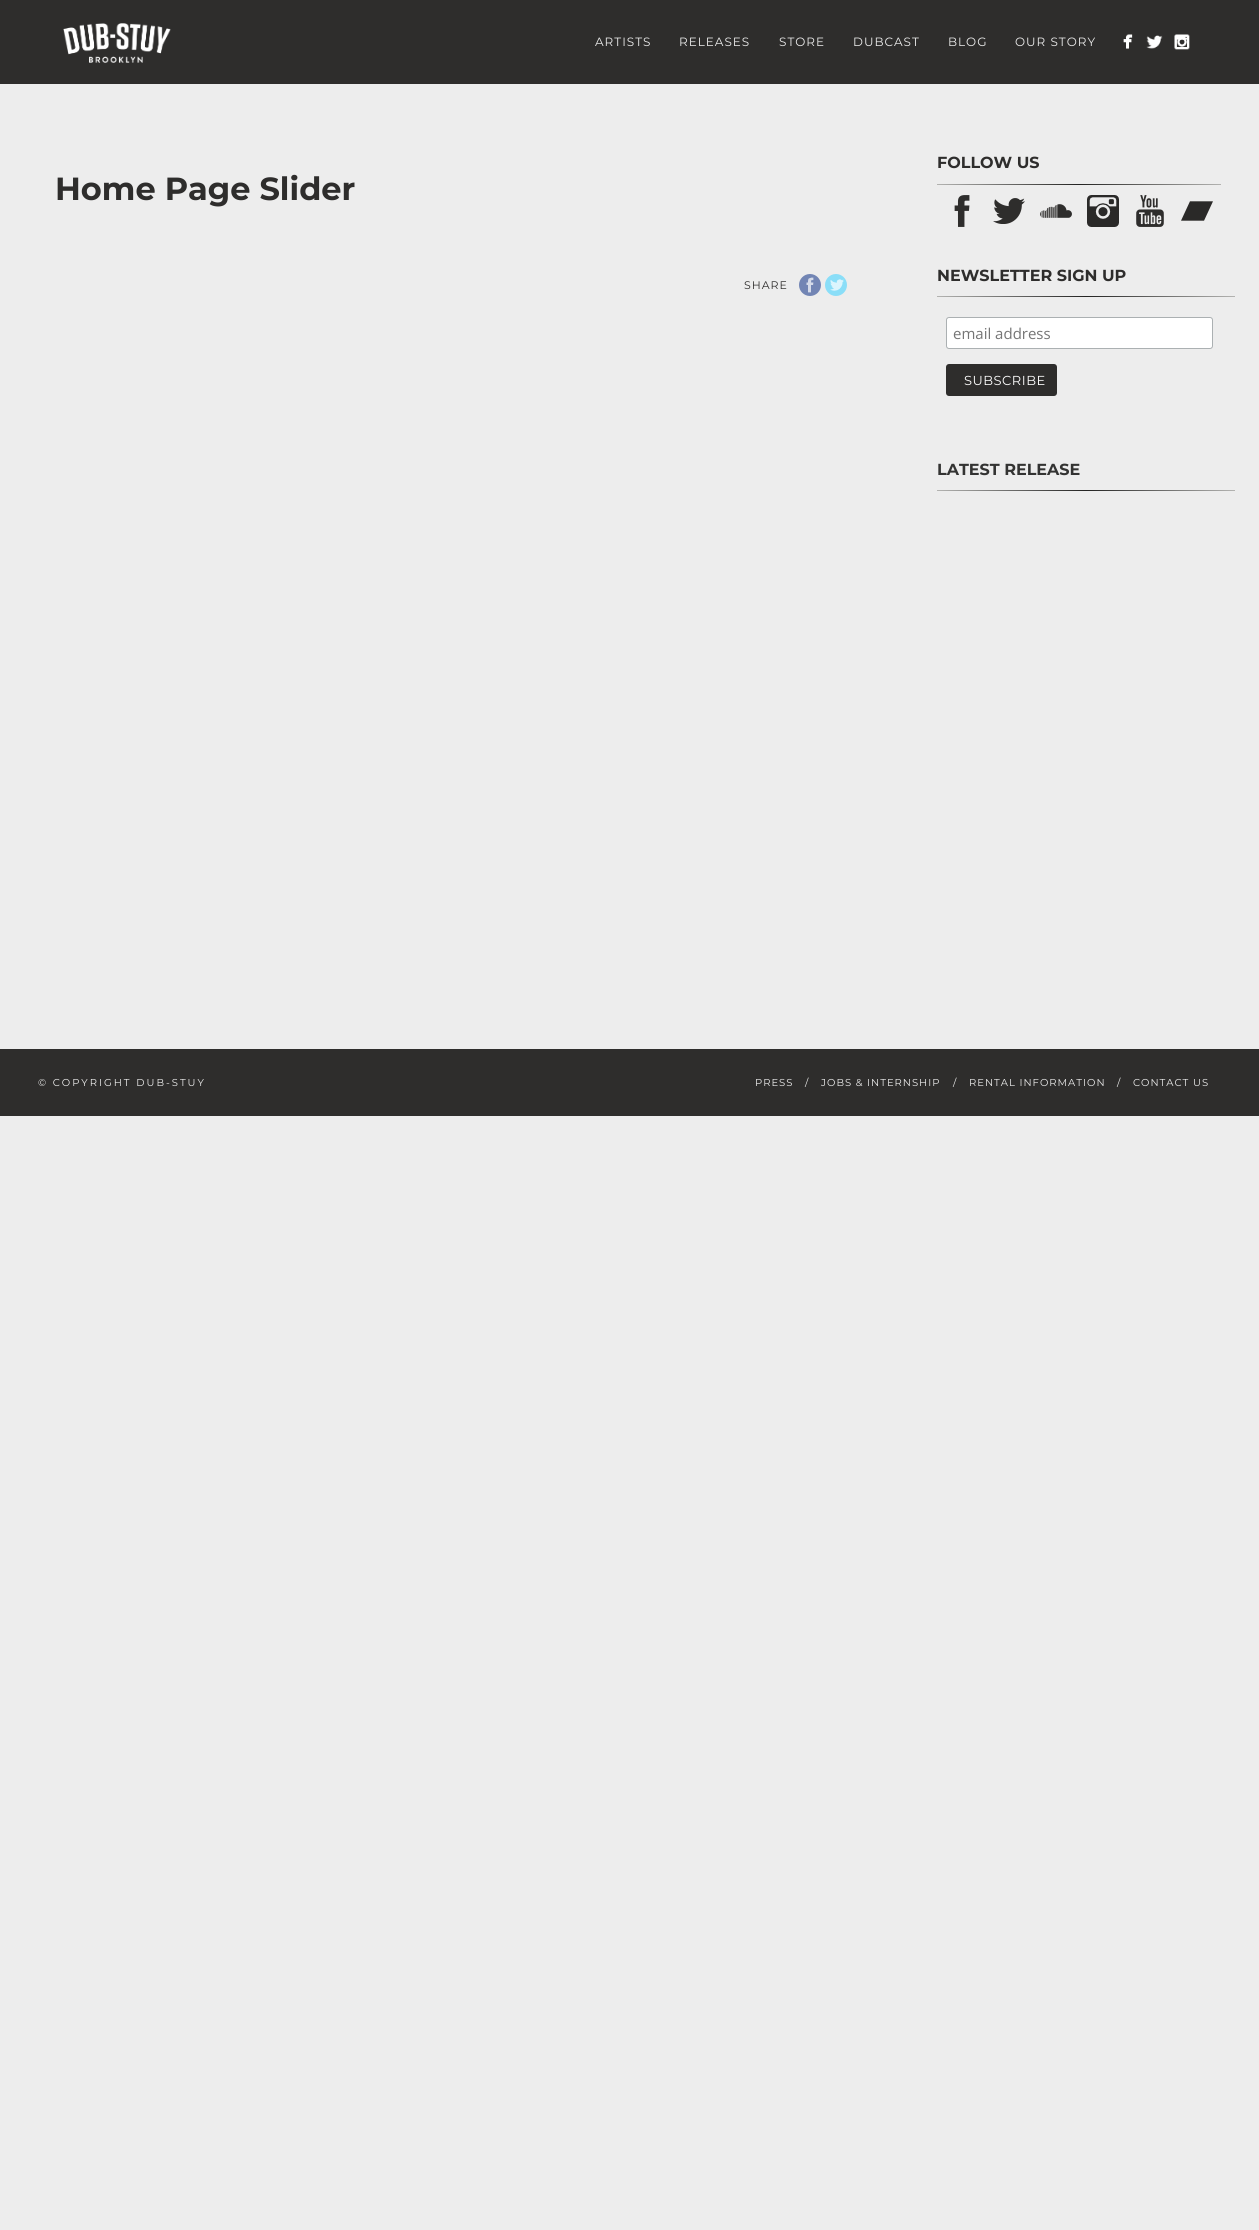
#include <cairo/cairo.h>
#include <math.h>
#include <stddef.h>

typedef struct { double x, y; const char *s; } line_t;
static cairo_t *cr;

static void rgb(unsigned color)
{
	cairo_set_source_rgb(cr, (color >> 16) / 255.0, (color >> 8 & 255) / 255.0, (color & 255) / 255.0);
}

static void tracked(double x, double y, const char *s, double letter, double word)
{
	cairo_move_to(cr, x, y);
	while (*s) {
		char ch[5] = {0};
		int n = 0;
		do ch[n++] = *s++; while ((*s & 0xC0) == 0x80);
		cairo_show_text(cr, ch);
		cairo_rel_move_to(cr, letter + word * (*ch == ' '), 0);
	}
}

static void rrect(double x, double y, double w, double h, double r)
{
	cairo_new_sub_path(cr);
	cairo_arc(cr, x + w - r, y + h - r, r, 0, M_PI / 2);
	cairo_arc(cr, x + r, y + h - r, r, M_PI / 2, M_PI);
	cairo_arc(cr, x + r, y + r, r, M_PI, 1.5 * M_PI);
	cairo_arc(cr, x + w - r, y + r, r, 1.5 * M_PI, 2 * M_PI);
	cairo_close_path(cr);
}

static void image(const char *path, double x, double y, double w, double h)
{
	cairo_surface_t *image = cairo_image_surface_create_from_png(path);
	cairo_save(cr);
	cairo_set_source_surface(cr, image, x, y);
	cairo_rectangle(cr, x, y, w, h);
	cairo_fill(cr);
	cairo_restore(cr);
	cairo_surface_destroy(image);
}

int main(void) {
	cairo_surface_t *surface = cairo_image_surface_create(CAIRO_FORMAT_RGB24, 1259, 2230);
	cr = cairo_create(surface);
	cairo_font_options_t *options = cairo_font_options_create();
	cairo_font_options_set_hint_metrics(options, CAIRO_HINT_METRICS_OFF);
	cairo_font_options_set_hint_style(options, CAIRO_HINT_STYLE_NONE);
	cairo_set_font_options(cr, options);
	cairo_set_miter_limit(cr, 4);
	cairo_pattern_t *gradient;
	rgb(0xededed);
	cairo_paint(cr);
	rgb(0x2e2d2c);
	cairo_rectangle(cr, 0, 0, 1259, 84);
	cairo_fill(cr);
	image("img/1.png", 63, 23, 108, 40);
	image("img/2.png", 1123, 34, 10, 15);
	image("img/3.png", 1146, 35, 17, 14);
	image("img/4.png", 1174, 34, 16, 16);
	rgb(0x7285b4);
	cairo_arc(cr, 810, 285, 11, 0, 2 * M_PI);
	cairo_fill(cr);
	image("img/5.png", 806, 277, 8, 16);
	rgb(0x8adef8);
	cairo_arc(cr, 836, 285, 11, 0, 2 * M_PI);
	cairo_fill(cr);
	image("img/6.png", 830, 279, 14, 12);
	gradient = cairo_pattern_create_linear(937, 185, 1221, 185);
	cairo_pattern_add_color_stop_rgba(gradient, 0, 0.702, 0.702, 0.694, 1);
	cairo_pattern_add_color_stop_rgba(gradient, 0.5, 0.141, 0.141, 0.137, 1);
	cairo_pattern_add_color_stop_rgba(gradient, 1, 0.702, 0.702, 0.694, 1);
	cairo_set_source(cr, gradient);
	cairo_pattern_destroy(gradient);
	cairo_rectangle(cr, 937, 184, 284, 1);
	cairo_fill(cr);
	image("img/7.png", 954, 195, 16, 32);
	image("img/8.png", 993, 198, 32, 26);
	image("img/9.png", 1040, 204, 32, 14);
	image("img/10.png", 1087, 195, 32, 32);
	image("img/11.png", 1136, 195, 28, 32);
	image("img/12.png", 1181, 201, 32, 20);
	gradient = cairo_pattern_create_linear(937, 297, 1235, 297);
	cairo_pattern_add_color_stop_rgba(gradient, 0, 0.702, 0.702, 0.694, 1);
	cairo_pattern_add_color_stop_rgba(gradient, 0.5, 0.141, 0.141, 0.137, 1);
	cairo_pattern_add_color_stop_rgba(gradient, 1, 0.702, 0.702, 0.694, 1);
	cairo_set_source(cr, gradient);
	cairo_pattern_destroy(gradient);
	cairo_rectangle(cr, 937, 296, 298, 1);
	cairo_fill(cr);
	rgb(0xffffff);
	rrect(946.5, 317.5, 266, 31, 2.5);
	cairo_fill_preserve(cr);
	rgb(0xabb0b2);
	cairo_set_line_width(cr, 1);
	cairo_stroke(cr);
	rgb(0x2e2d2c);
	rrect(946, 364, 111, 32, 3);
	cairo_fill(cr);
	gradient = cairo_pattern_create_linear(937, 491, 1235, 491);
	cairo_pattern_add_color_stop_rgba(gradient, 0, 0.702, 0.702, 0.694, 1);
	cairo_pattern_add_color_stop_rgba(gradient, 0.5, 0.141, 0.141, 0.137, 1);
	cairo_pattern_add_color_stop_rgba(gradient, 1, 0.702, 0.702, 0.694, 1);
	cairo_set_source(cr, gradient);
	cairo_pattern_destroy(gradient);
	cairo_rectangle(cr, 937, 490, 298, 1);
	cairo_fill(cr);
	rgb(0x2e2d2c);
	cairo_rectangle(cr, 0, 1049, 1259, 67);
	cairo_fill(cr);
	cairo_select_font_face(cr, "Montserrat", CAIRO_FONT_SLANT_NORMAL, CAIRO_FONT_WEIGHT_NORMAL);
	cairo_set_font_size(cr, 12);
	rgb(0xededed);
	{
		static const line_t items[] = {
			{595, 46, "ARTISTS"},
			{679, 46, "RELEASES"},
			{779, 46, "STORE"},
			{853, 46, "DUBCAST"},
			{948, 46, "BLOG"},
			{1015, 46, "OUR STORY"},
		};
		for (size_t i = 0; i < sizeof items / sizeof *items; i++) {
			tracked(items[i].x, items[i].y, items[i].s, 1, 0);
		}
	}
	cairo_select_font_face(cr, "Montserrat", CAIRO_FONT_SLANT_NORMAL, CAIRO_FONT_WEIGHT_BOLD);
	cairo_set_font_size(cr, 32);
	rgb(0x2e2d2c);
	cairo_move_to(cr, 55, 200);
	cairo_show_text(cr, "Home Page Slider");
	cairo_select_font_face(cr, "Montserrat", CAIRO_FONT_SLANT_NORMAL, CAIRO_FONT_WEIGHT_NORMAL);
	cairo_set_font_size(cr, 11);
	tracked(744, 289, "SHARE", 1, 0);
	cairo_select_font_face(cr, "Montserrat", CAIRO_FONT_SLANT_NORMAL, CAIRO_FONT_WEIGHT_BOLD);
	cairo_set_font_size(cr, 16);
	cairo_move_to(cr, 937, 168);
	cairo_show_text(cr, "FOLLOW US");
	cairo_move_to(cr, 937, 281);
	cairo_show_text(cr, "NEWSLETTER SIGN UP");
	cairo_select_font_face(cr, "Open Sans", CAIRO_FONT_SLANT_NORMAL, CAIRO_FONT_WEIGHT_NORMAL);
	cairo_set_font_size(cr, 15);
	rgb(0x757575);
	cairo_move_to(cr, 953, 339);
	cairo_show_text(cr, "email address");
	cairo_select_font_face(cr, "Montserrat", CAIRO_FONT_SLANT_NORMAL, CAIRO_FONT_WEIGHT_NORMAL);
	cairo_set_font_size(cr, 13);
	rgb(0xffffff);
	tracked(964, 385, "SUBSCRIBE", 0.5, 0);
	cairo_select_font_face(cr, "Montserrat", CAIRO_FONT_SLANT_NORMAL, CAIRO_FONT_WEIGHT_BOLD);
	cairo_set_font_size(cr, 16);
	rgb(0x333332);
	cairo_move_to(cr, 937, 475);
	cairo_show_text(cr, "LATEST RELEASE");
	cairo_select_font_face(cr, "Montserrat", CAIRO_FONT_SLANT_NORMAL, CAIRO_FONT_WEIGHT_NORMAL);
	cairo_set_font_size(cr, 10);
	rgb(0xededed);
	tracked(38, 1086, "© COPYRIGHT DUB-STUY", 2, 0);
	{
		static const line_t items[] = {
			{755, 1086, "PRESS"},
			{805, 1086, "/"},
			{821, 1086, "JOBS & INTERNSHIP"},
			{953, 1086, "/"},
			{969, 1086, "RENTAL INFORMATION"},
			{1117, 1086, "/"},
			{1133, 1086, "CONTACT US"},
		};
		for (size_t i = 0; i < sizeof items / sizeof *items; i++) {
			tracked(items[i].x, items[i].y, items[i].s, 1, 0);
		}
	}
	cairo_surface_write_to_png(surface, "page.png");
	cairo_font_options_destroy(options);
	cairo_destroy(cr);
	cairo_surface_destroy(surface);
	return 0;
}
